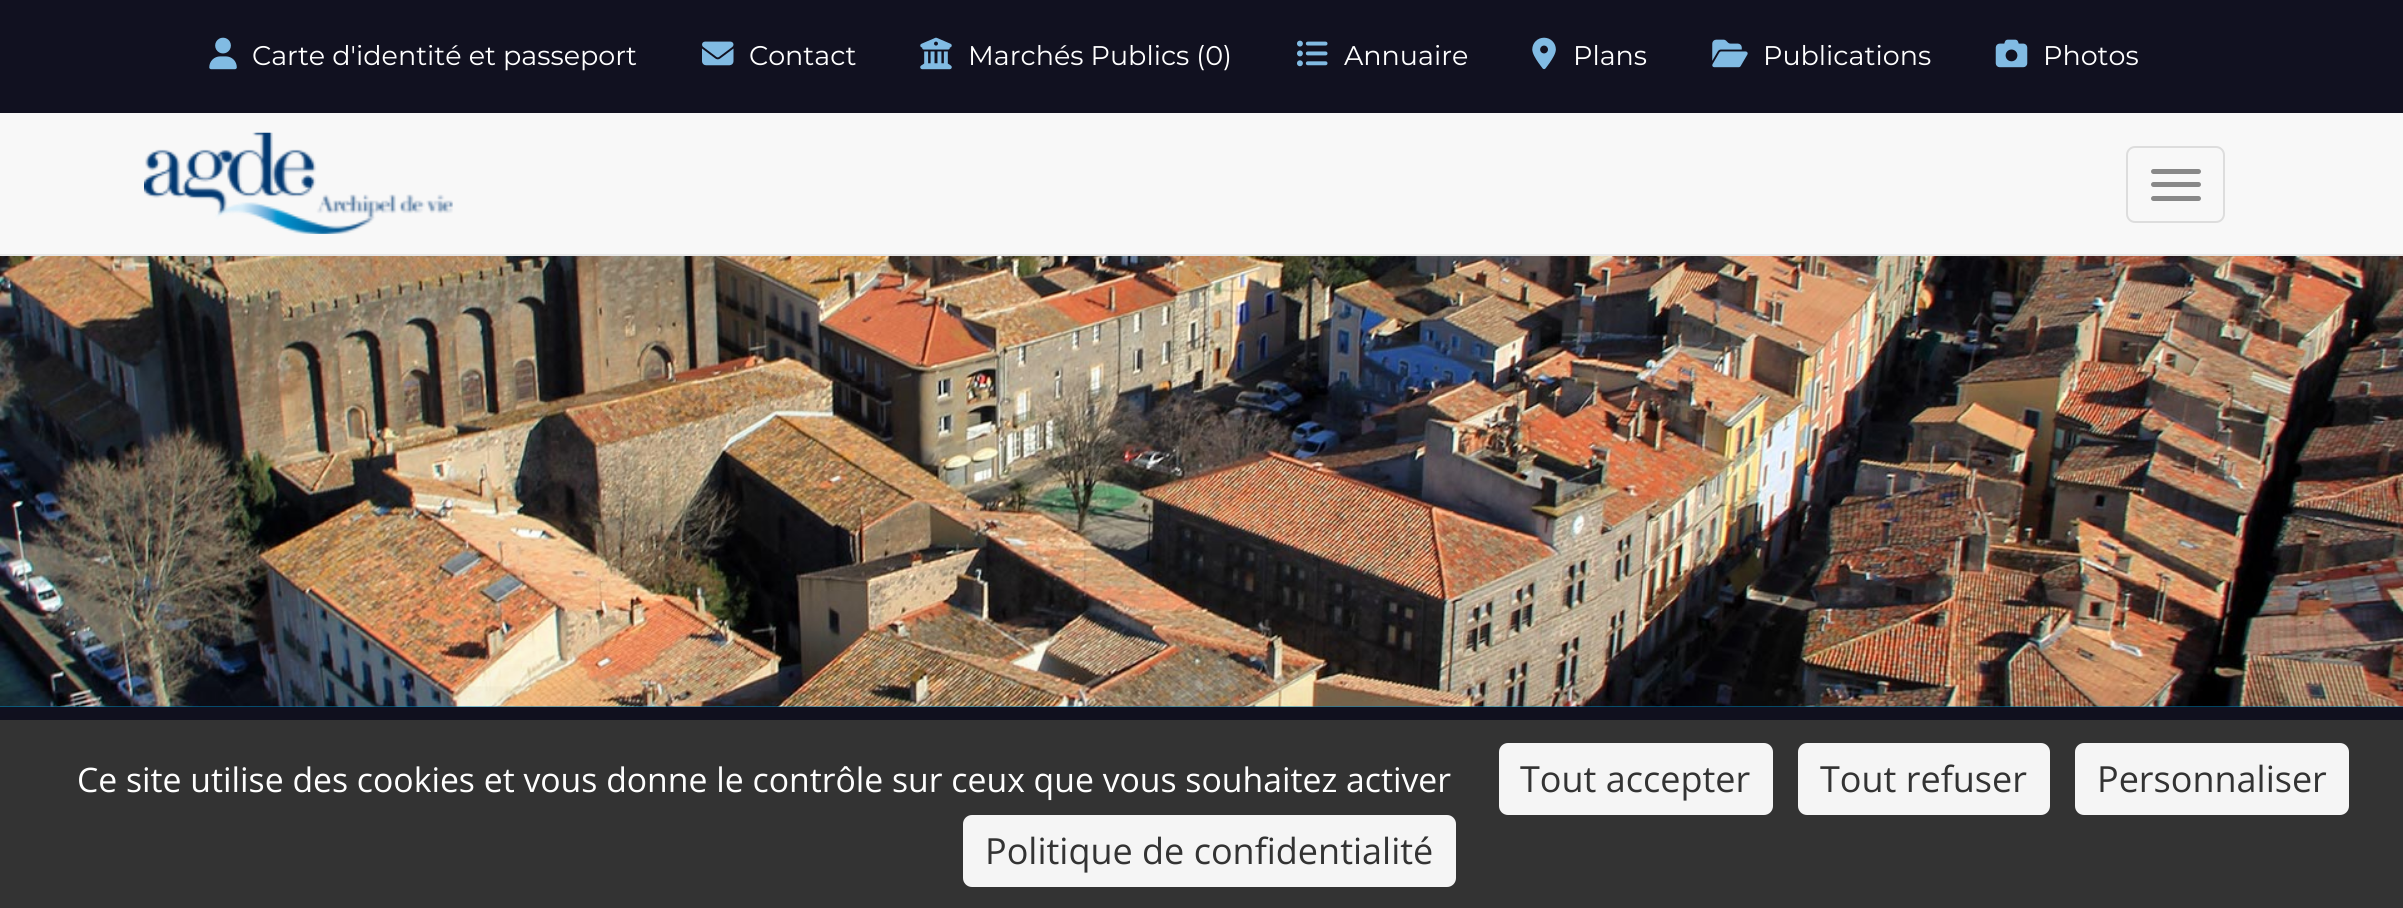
#include <cairo/cairo.h>
#include <math.h>
#include <stddef.h>

typedef struct { double x, y; const char *s; } line_t;
typedef struct { double x, y, w, h; unsigned color; } box_t;
static cairo_t *cr;

static void rgb(unsigned color)
{
	cairo_set_source_rgb(cr, (color >> 16) / 255.0, (color >> 8 & 255) / 255.0, (color & 255) / 255.0);
}

static void rrect(double x, double y, double w, double h, double r)
{
	cairo_new_sub_path(cr);
	cairo_arc(cr, x + w - r, y + h - r, r, 0, M_PI / 2);
	cairo_arc(cr, x + r, y + h - r, r, M_PI / 2, M_PI);
	cairo_arc(cr, x + r, y + r, r, M_PI, 1.5 * M_PI);
	cairo_arc(cr, x + w - r, y + r, r, 1.5 * M_PI, 2 * M_PI);
	cairo_close_path(cr);
}

static void soft_shadow(double x, double y, double w, double h, double r, double blur, double alpha)
{
	cairo_push_group_with_content(cr, CAIRO_CONTENT_ALPHA);
	cairo_set_operator(cr, CAIRO_OPERATOR_SOURCE);
	for (int i = 15; i >= -15 && fmin(w, h) + blur * i / 3 > 0; i -= 2) {
		double e = blur * i / 6;
		cairo_set_source_rgba(cr, 0, 0, 0, alpha * erfc((i - 1) / 8.5) / 2);
		rrect(x - e, y - e, w + 2 * e, h + 2 * e, fmax(0, fmin(r + e + blur * .6, fmin(w, h) / 2 + e)));
		cairo_fill(cr);
	}
	cairo_pattern_t *soft = cairo_pop_group(cr);
	cairo_mask(cr, soft);
	cairo_pattern_destroy(soft);
}

static void image(const char *path, double x, double y, double w, double h)
{
	cairo_surface_t *image = cairo_image_surface_create_from_png(path);
	cairo_save(cr);
	cairo_set_source_surface(cr, image, x, y);
	cairo_rectangle(cr, x, y, w, h);
	cairo_fill(cr);
	cairo_restore(cr);
	cairo_surface_destroy(image);
}

int main(void) {
	cairo_surface_t *surface = cairo_image_surface_create(CAIRO_FORMAT_RGB24, 2403, 908);
	cr = cairo_create(surface);
	cairo_font_options_t *options = cairo_font_options_create();
	cairo_font_options_set_hint_metrics(options, CAIRO_HINT_METRICS_OFF);
	cairo_font_options_set_hint_style(options, CAIRO_HINT_STYLE_NONE);
	cairo_set_font_options(cr, options);
	cairo_set_miter_limit(cr, 4);
	rgb(0x008fc8);
	cairo_paint(cr);
	{
		static const box_t items[] = {
			{0, 113, 2403, 141, 0xf8f8f8},
			{0, 254, 2403, 2, 0xe7e7e7},
			{0, 0, 2403, 113, 0x111120},
		};
		for (size_t i = 0; i < sizeof items / sizeof *items; i++) {
			rgb(items[i].color);
			cairo_rectangle(cr, items[i].x, items[i].y, items[i].w, items[i].h);
			cairo_fill(cr);
		}
	}
	image("img/1.png", 209, 37, 28, 33);
	image("img/2.png", 702, 41, 32, 25);
	image("img/3.png", 920, 37, 32, 33);
	image("img/4.png", 1297, 40, 31, 27);
	image("img/5.png", 1532, 37, 24, 33);
	image("img/6.png", 1712, 39, 36, 29);
	image("img/7.png", 1995, 39, 33, 29);
	image("img/8.png", 144, 132, 309, 102);
	rrect(2127, 147, 97, 75, 8);
	rgb(0xdddddd);
	cairo_stroke(cr);
	rgb(0x888888);
	rrect(2151, 169, 50, 5, 2.5);
	cairo_fill(cr);
	rrect(2151, 182, 50, 5, 2.5);
	cairo_fill(cr);
	rrect(2151, 196, 50, 5, 2.5);
	cairo_fill(cr);
	image("img/9.png", 0, 256, 2403, 451);
	rgb(0x111120);
	cairo_rectangle(cr, 0, 707, 2403, 13);
	cairo_fill(cr);
	rgb(0x000000);
	soft_shadow(0, 765, 2403, 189, 0, 67.5, 0.25);
	rgb(0x333333);
	cairo_rectangle(cr, 0, 720, 2403, 188);
	cairo_fill(cr);
	rgb(0xf5f5f5);
	rrect(1499, 743, 274, 72, 9);
	cairo_fill(cr);
	rrect(1798, 743, 252, 72, 9);
	cairo_fill(cr);
	rrect(2075, 743, 274, 72, 9);
	cairo_fill(cr);
	rrect(963, 815, 493, 72, 9);
	cairo_fill(cr);
	cairo_select_font_face(cr, "Montserrat", CAIRO_FONT_SLANT_NORMAL, CAIRO_FONT_WEIGHT_NORMAL);
	cairo_set_font_size(cr, 27);
	rgb(0xffffff);
	{
		static const line_t items[] = {
			{252, 65, "Carte d'identité et passeport"},
			{749, 65, "Contact"},
			{968, 65, "Marchés Publics (0)"},
			{1344, 65, "Annuaire"},
			{1573, 65, "Plans"},
			{1763, 65, "Publications"},
			{2043, 65, "Photos"},
		};
		for (size_t i = 0; i < sizeof items / sizeof *items; i++) {
			cairo_move_to(cr, items[i].x, items[i].y);
			cairo_show_text(cr, items[i].s);
		}
	}
	cairo_select_font_face(cr, "Open Sans", CAIRO_FONT_SLANT_NORMAL, CAIRO_FONT_WEIGHT_NORMAL);
	cairo_set_font_size(cr, 33.75);
	cairo_move_to(cr, 77, 792);
	cairo_show_text(cr, "Ce site utilise des cookies et vous donne le contrôle sur ceux que vous souhaitez activer");
	cairo_set_font_size(cr, 36);
	rgb(0x333333);
	{
		static const line_t items[] = {
			{1520, 792, "Tout accepter"},
			{1820, 792, "Tout refuser"},
			{2097, 792, "Personnaliser"},
			{985, 864, "Politique de confidentialité"},
		};
		for (size_t i = 0; i < sizeof items / sizeof *items; i++) {
			cairo_move_to(cr, items[i].x, items[i].y);
			cairo_show_text(cr, items[i].s);
		}
	}
	cairo_surface_write_to_png(surface, "page.png");
	cairo_font_options_destroy(options);
	cairo_destroy(cr);
	cairo_surface_destroy(surface);
	return 0;
}
